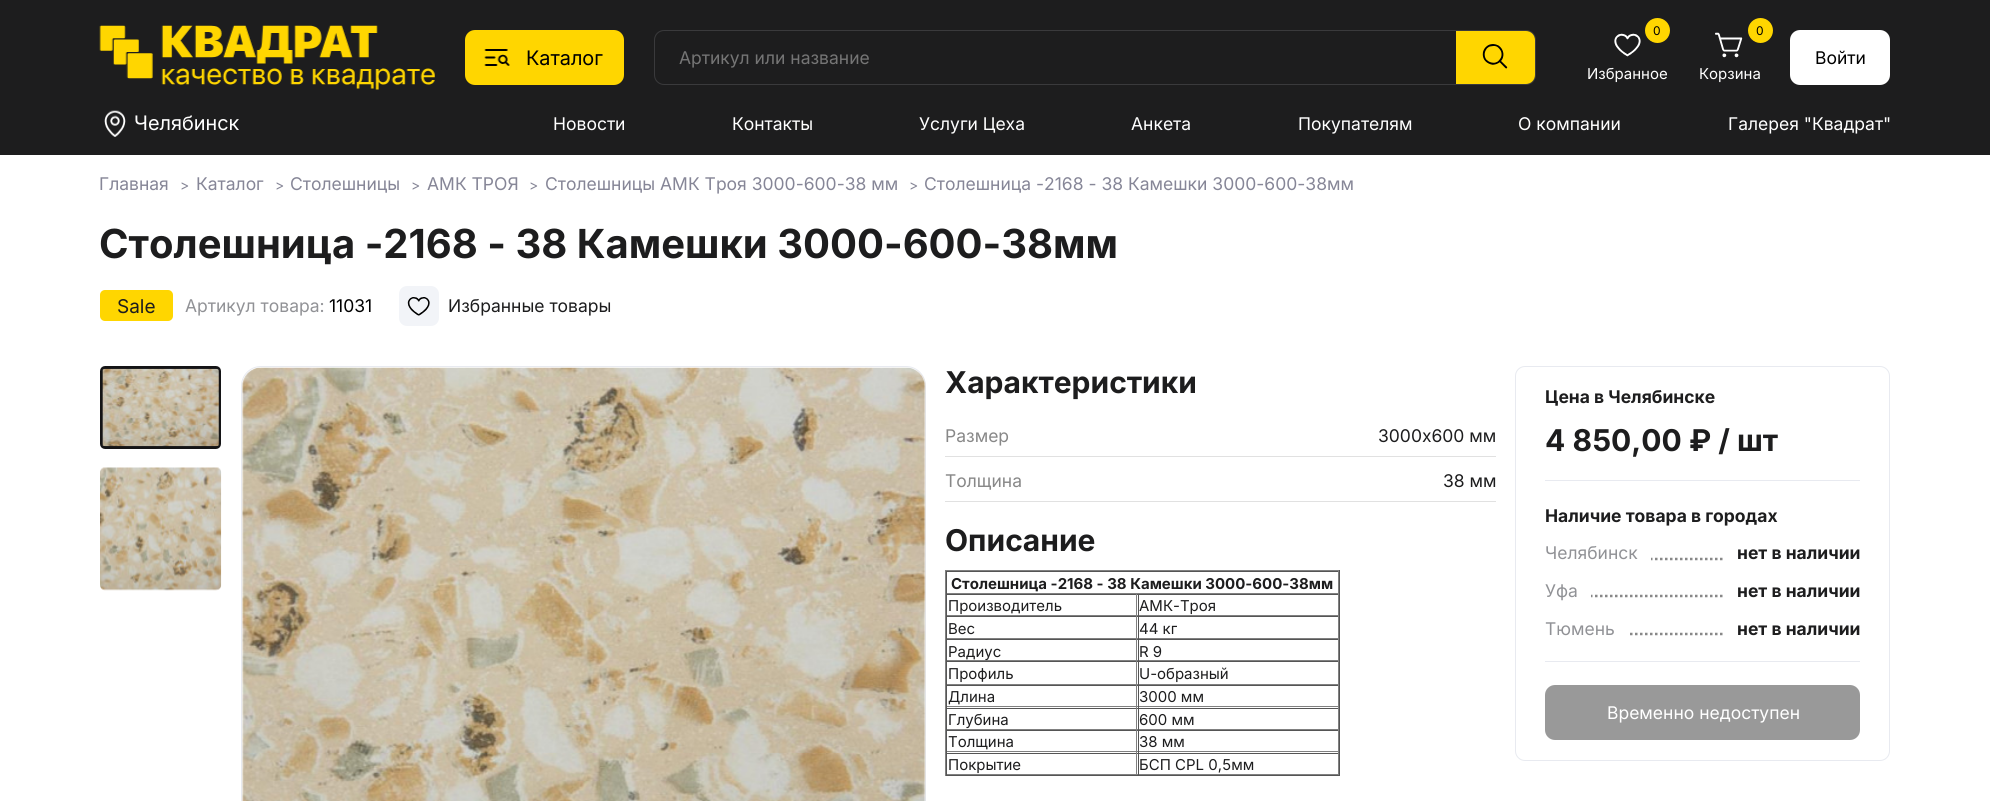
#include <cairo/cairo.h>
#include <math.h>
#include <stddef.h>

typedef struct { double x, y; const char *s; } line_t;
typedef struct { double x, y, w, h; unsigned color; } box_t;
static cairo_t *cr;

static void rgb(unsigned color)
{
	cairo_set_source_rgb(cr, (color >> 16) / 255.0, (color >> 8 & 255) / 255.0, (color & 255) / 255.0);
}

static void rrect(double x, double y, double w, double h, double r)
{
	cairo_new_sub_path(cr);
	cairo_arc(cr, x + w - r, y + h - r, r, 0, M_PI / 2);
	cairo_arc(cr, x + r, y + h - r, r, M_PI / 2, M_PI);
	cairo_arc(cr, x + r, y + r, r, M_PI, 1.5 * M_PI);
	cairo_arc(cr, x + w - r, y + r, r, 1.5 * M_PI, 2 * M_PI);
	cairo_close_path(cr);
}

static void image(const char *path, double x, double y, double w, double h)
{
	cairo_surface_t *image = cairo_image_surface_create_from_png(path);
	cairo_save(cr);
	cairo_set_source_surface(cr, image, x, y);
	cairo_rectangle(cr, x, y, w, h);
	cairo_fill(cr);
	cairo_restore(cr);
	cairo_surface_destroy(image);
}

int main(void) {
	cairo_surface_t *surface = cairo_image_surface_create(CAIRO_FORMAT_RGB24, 1990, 801);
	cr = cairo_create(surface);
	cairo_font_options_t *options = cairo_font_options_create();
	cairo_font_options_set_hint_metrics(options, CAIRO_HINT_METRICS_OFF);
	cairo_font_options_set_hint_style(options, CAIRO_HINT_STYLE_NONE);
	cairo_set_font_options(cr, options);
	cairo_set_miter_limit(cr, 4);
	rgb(0xffffff);
	cairo_paint(cr);
	rgb(0x1d1d1e);
	cairo_rectangle(cr, 0, 0, 1990, 155);
	cairo_fill(cr);
	image("img/1.png", 99, 25, 336, 65);
	rgb(0xffd600);
	rrect(465, 30, 159, 55, 10);
	cairo_fill(cr);
	image("img/2.png", 484, 49, 26, 17);
	rrect(654.5, 30.5, 881, 54, 9.5);
	rgb(0x3a3a3c);
	cairo_set_line_width(cr, 1);
	cairo_stroke(cr);
	rgb(0xffd600);
	cairo_new_path(cr);
	cairo_move_to(cr, 1456, 31);
	cairo_line_to(cr, 1526, 31);
	cairo_curve_to(cr, 1531, 31, 1535, 35, 1535, 40);
	cairo_line_to(cr, 1535, 75);
	cairo_curve_to(cr, 1535, 80, 1531, 84, 1526, 84);
	cairo_line_to(cr, 1456, 84);
	cairo_close_path(cr);
	cairo_fill(cr);
	image("img/3.png", 1482, 44, 26, 25);
	cairo_arc(cr, 1657.5, 30.5, 12.5, 0, 2 * M_PI);
	cairo_fill(cr);
	image("img/4.png", 1614, 33, 27, 24);
	cairo_arc(cr, 1760.5, 30.5, 12.5, 0, 2 * M_PI);
	cairo_fill(cr);
	image("img/5.png", 1715, 32, 28, 26);
	rgb(0xffffff);
	rrect(1790, 30, 100, 55, 10);
	cairo_fill(cr);
	image("img/6.png", 104, 110, 22, 27);
	rgb(0xffd600);
	rrect(100, 290, 73, 31, 5);
	cairo_fill(cr);
	rgb(0xf2f4f8);
	rrect(399, 286, 40, 40, 8);
	cairo_fill(cr);
	image("img/7.png", 407, 297, 23, 19);
	rrect(101.5, 367.5, 118, 80, 3.5);
	rgb(0x141416);
	cairo_set_line_width(cr, 3);
	cairo_stroke(cr);
	image("img/8.png", 102, 368, 117, 79);
	image("img/9.png", 100, 467, 122, 124);
	rrect(241.5, 366.5, 684, 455, 19.5);
	rgb(0xe8eaf0);
	cairo_set_line_width(cr, 1);
	cairo_stroke(cr);
	image("img/10.png", 242, 367, 684, 434);
	{
		static const box_t items[] = {
			{945, 456, 551, 1, 0xe1e1e1},
			{945, 501, 551, 1, 0xe1e1e1},
			{945, 570, 395, 1, 0x808080},
			{1339, 570, 1, 206, 0x555555},
			{945, 775, 395, 1, 0x555555},
			{945, 570, 1, 206, 0x808080},
			{946, 571, 393, 1, 0x555555},
			{1338, 571, 1, 23, 0x808080},
			{946, 593, 393, 1, 0x808080},
			{946, 571, 1, 23, 0x555555},
			{946, 594, 393, 1, 0x555555},
			{1136, 594, 1, 22, 0x808080},
			{946, 615, 192, 1, 0x808080},
			{946, 594, 1, 22, 0x555555},
			{1338, 594, 1, 22, 0x808080},
			{1138, 615, 201, 1, 0x808080},
			{1138, 594, 1, 22, 0x555555},
			{946, 616, 393, 1, 0x555555},
			{1136, 616, 1, 23, 0x808080},
			{946, 638, 192, 1, 0x808080},
			{946, 616, 1, 23, 0x555555},
			{1338, 616, 1, 23, 0x808080},
			{1138, 638, 201, 1, 0x808080},
			{1138, 616, 1, 23, 0x555555},
			{946, 639, 393, 1, 0x555555},
			{1136, 639, 1, 22, 0x808080},
			{946, 660, 192, 1, 0x808080},
			{946, 639, 1, 22, 0x555555},
			{1338, 639, 1, 22, 0x808080},
			{1138, 660, 201, 1, 0x808080},
			{1138, 639, 1, 22, 0x555555},
			{946, 661, 393, 1, 0x555555},
			{1136, 661, 1, 24, 0x808080},
			{946, 684, 192, 1, 0x808080},
			{946, 661, 1, 24, 0x555555},
			{1338, 661, 1, 24, 0x808080},
			{1138, 684, 201, 1, 0x808080},
			{1138, 661, 1, 24, 0x555555},
			{946, 685, 393, 1, 0x555555},
			{1136, 685, 1, 23, 0x808080},
			{946, 706, 192, 1, 0x808080},
			{946, 685, 1, 23, 0x555555},
			{1338, 685, 1, 23, 0x808080},
			{1138, 706, 201, 1, 0x808080},
			{1138, 685, 1, 23, 0x555555},
			{946, 708, 393, 1, 0x555555},
			{1136, 708, 1, 22, 0x808080},
			{946, 729, 192, 1, 0x808080},
			{946, 708, 1, 22, 0x555555},
			{1338, 708, 1, 22, 0x808080},
			{1138, 729, 201, 1, 0x808080},
			{1138, 708, 1, 22, 0x555555},
			{946, 730, 393, 1, 0x555555},
			{1136, 730, 1, 23, 0x808080},
			{946, 751, 192, 1, 0x808080},
			{946, 730, 1, 23, 0x555555},
			{1338, 730, 1, 23, 0x808080},
			{1138, 751, 201, 1, 0x808080},
			{1138, 730, 1, 23, 0x555555},
			{946, 753, 393, 1, 0x555555},
			{1136, 753, 1, 22, 0x808080},
			{946, 774, 192, 1, 0x808080},
			{946, 753, 1, 22, 0x555555},
			{1338, 753, 1, 22, 0x808080},
			{1138, 774, 201, 1, 0x808080},
			{1138, 753, 1, 22, 0x555555},
		};
		for (size_t i = 0; i < sizeof items / sizeof *items; i++) {
			rgb(items[i].color);
			cairo_rectangle(cr, items[i].x, items[i].y, items[i].w, items[i].h);
			cairo_fill(cr);
		}
	}
	cairo_new_path(cr);
	cairo_move_to(cr, 1545, 559);
	cairo_line_to(cr, 1860, 559);
	rgb(0x888888);
	cairo_set_line_width(cr, 2.5);
	cairo_set_dash(cr, (double[]){2.5, 2.5}, 2, 0);
	cairo_stroke(cr);
	cairo_new_path(cr);
	cairo_move_to(cr, 1545, 596);
	cairo_line_to(cr, 1860, 596);
	cairo_stroke(cr);
	cairo_new_path(cr);
	cairo_move_to(cr, 1545, 634);
	cairo_line_to(cr, 1860, 634);
	cairo_stroke(cr);
	rrect(1515.5, 366.5, 374, 394, 9.5);
	rgb(0xe8eaf0);
	cairo_set_line_width(cr, 1);
	cairo_set_dash(cr, NULL, 0, 0);
	cairo_stroke(cr);
	{
		static const box_t items[] = {
			{1545, 480, 315, 1, 0xe8eaf0},
			{1545, 557, 106, 4, 0xffffff},
			{1725, 557, 133, 4, 0xffffff},
			{1545, 594, 46, 4, 0xffffff},
			{1725, 594, 133, 4, 0xffffff},
			{1545, 632, 83, 4, 0xffffff},
			{1725, 632, 133, 4, 0xffffff},
			{1545, 661, 315, 1, 0xe8eaf0},
		};
		for (size_t i = 0; i < sizeof items / sizeof *items; i++) {
			rgb(items[i].color);
			cairo_rectangle(cr, items[i].x, items[i].y, items[i].w, items[i].h);
			cairo_fill(cr);
		}
	}
	rgb(0x999999);
	rrect(1545, 685, 315, 55, 10);
	cairo_fill(cr);
	cairo_select_font_face(cr, "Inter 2", CAIRO_FONT_SLANT_NORMAL, CAIRO_FONT_WEIGHT_NORMAL);
	cairo_set_font_size(cr, 20);
	rgb(0x000000);
	cairo_move_to(cr, 526, 65);
	cairo_show_text(cr, "Каталог");
	cairo_select_font_face(cr, "Inter", CAIRO_FONT_SLANT_NORMAL, CAIRO_FONT_WEIGHT_NORMAL);
	cairo_set_font_size(cr, 17.5);
	rgb(0x757575);
	cairo_move_to(cr, 679, 64);
	cairo_show_text(cr, "Артикул или название");
	cairo_set_font_size(cr, 12);
	rgb(0x000000);
	cairo_move_to(cr, 1653, 35);
	cairo_show_text(cr, "0");
	cairo_set_font_size(cr, 15);
	rgb(0xffffff);
	cairo_move_to(cr, 1587, 79);
	cairo_show_text(cr, "Избранное");
	cairo_set_font_size(cr, 12);
	rgb(0x000000);
	cairo_move_to(cr, 1756, 35);
	cairo_show_text(cr, "0");
	cairo_set_font_size(cr, 15);
	rgb(0xffffff);
	cairo_move_to(cr, 1699, 79);
	cairo_show_text(cr, "Корзина");
	cairo_set_font_size(cr, 17.5);
	rgb(0x000000);
	cairo_move_to(cr, 1815, 64);
	cairo_show_text(cr, "Войти");
	cairo_select_font_face(cr, "Inter 2", CAIRO_FONT_SLANT_NORMAL, CAIRO_FONT_WEIGHT_NORMAL);
	cairo_set_font_size(cr, 20);
	rgb(0xffffff);
	cairo_move_to(cr, 134, 130);
	cairo_show_text(cr, "Челябинск");
	cairo_select_font_face(cr, "Inter", CAIRO_FONT_SLANT_NORMAL, CAIRO_FONT_WEIGHT_NORMAL);
	cairo_set_font_size(cr, 17.5);
	{
		static const line_t items[] = {
			{553, 130, "Новости"},
			{732, 130, "Контакты"},
			{919, 130, "Услуги Цеха"},
			{1131, 130, "Анкета"},
			{1298, 130, "Покупателям"},
			{1518, 130, "О компании"},
			{1728, 130, "Галерея \"Квадрат\""},
		};
		for (size_t i = 0; i < sizeof items / sizeof *items; i++) {
			cairo_move_to(cr, items[i].x, items[i].y);
			cairo_show_text(cr, items[i].s);
		}
	}
	rgb(0x868697);
	cairo_move_to(cr, 99, 190);
	cairo_show_text(cr, "Главная");
	cairo_set_font_size(cr, 14);
	cairo_move_to(cr, 180, 190);
	cairo_show_text(cr, ">");
	cairo_set_font_size(cr, 17.5);
	cairo_move_to(cr, 196, 190);
	cairo_show_text(cr, "Каталог");
	cairo_set_font_size(cr, 14);
	cairo_move_to(cr, 275, 190);
	cairo_show_text(cr, ">");
	cairo_set_font_size(cr, 17.5);
	cairo_move_to(cr, 290, 190);
	cairo_show_text(cr, "Столешницы");
	cairo_set_font_size(cr, 14);
	cairo_move_to(cr, 411, 190);
	cairo_show_text(cr, ">");
	cairo_set_font_size(cr, 17.5);
	cairo_move_to(cr, 427, 190);
	cairo_show_text(cr, "АМК ТРОЯ");
	cairo_set_font_size(cr, 14);
	cairo_move_to(cr, 529, 190);
	cairo_show_text(cr, ">");
	cairo_set_font_size(cr, 17.5);
	cairo_move_to(cr, 545, 190);
	cairo_show_text(cr, "Столешницы АМК Троя 3000-600-38 мм");
	cairo_set_font_size(cr, 14);
	cairo_move_to(cr, 909, 190);
	cairo_show_text(cr, ">");
	cairo_set_font_size(cr, 17.5);
	cairo_move_to(cr, 924, 190);
	cairo_show_text(cr, "Столешница -2168 - 38 Камешки 3000-600-38мм");
	cairo_select_font_face(cr, "Inter", CAIRO_FONT_SLANT_NORMAL, CAIRO_FONT_WEIGHT_BOLD);
	cairo_set_font_size(cr, 40);
	rgb(0x1d1d1e);
	cairo_move_to(cr, 99, 258);
	cairo_show_text(cr, "Столешница -2168 - 38 Камешки 3000-600-38мм");
	cairo_select_font_face(cr, "Inter", CAIRO_FONT_SLANT_NORMAL, CAIRO_FONT_WEIGHT_NORMAL);
	cairo_set_font_size(cr, 19);
	cairo_move_to(cr, 117, 313);
	cairo_show_text(cr, "Sale");
	cairo_set_font_size(cr, 17.5);
	rgb(0x919296);
	cairo_move_to(cr, 185, 312);
	cairo_show_text(cr, "Артикул товара:");
	rgb(0x000000);
	cairo_move_to(cr, 329, 312);
	cairo_show_text(cr, "11031");
	rgb(0x1d1d1e);
	cairo_move_to(cr, 448, 312);
	cairo_show_text(cr, "Избранные товары");
	cairo_select_font_face(cr, "Inter", CAIRO_FONT_SLANT_NORMAL, CAIRO_FONT_WEIGHT_BOLD);
	cairo_set_font_size(cr, 30);
	cairo_move_to(cr, 945, 393);
	cairo_show_text(cr, "Характеристики");
	cairo_select_font_face(cr, "Inter", CAIRO_FONT_SLANT_NORMAL, CAIRO_FONT_WEIGHT_NORMAL);
	cairo_set_font_size(cr, 17.5);
	rgb(0x888888);
	cairo_move_to(cr, 945, 442);
	cairo_show_text(cr, "Размер");
	rgb(0x1d1d1e);
	cairo_move_to(cr, 1378, 442);
	cairo_show_text(cr, "3000х600 мм");
	rgb(0x888888);
	cairo_move_to(cr, 945, 487);
	cairo_show_text(cr, "Толщина");
	rgb(0x1d1d1e);
	cairo_move_to(cr, 1443, 487);
	cairo_show_text(cr, "38 мм");
	cairo_select_font_face(cr, "Inter", CAIRO_FONT_SLANT_NORMAL, CAIRO_FONT_WEIGHT_BOLD);
	cairo_set_font_size(cr, 30);
	cairo_move_to(cr, 945, 551);
	cairo_show_text(cr, "Описание");
	cairo_set_font_size(cr, 15);
	cairo_move_to(cr, 951, 589);
	cairo_show_text(cr, "Столешница -2168 - 38 Камешки 3000-600-38мм");
	cairo_select_font_face(cr, "Inter", CAIRO_FONT_SLANT_NORMAL, CAIRO_FONT_WEIGHT_NORMAL);
	{
		static const line_t items[] = {
			{948, 611, "Производитель"},
			{1139, 611, "АМК-Троя"},
			{948, 634, "Вес"},
			{1139, 634, "44 кг"},
			{948, 657, "Радиус"},
			{1139, 657, "R 9"},
			{948, 679, "Профиль"},
			{1139, 679, "U-образный"},
			{948, 702, "Длина"},
			{1139, 702, "3000 мм"},
			{948, 725, "Глубина"},
			{1139, 725, "600 мм"},
			{948, 747, "Толщина"},
			{1139, 747, "38 мм"},
			{948, 770, "Покрытие"},
			{1139, 770, "БСП CPL 0,5мм"},
		};
		for (size_t i = 0; i < sizeof items / sizeof *items; i++) {
			cairo_move_to(cr, items[i].x, items[i].y);
			cairo_show_text(cr, items[i].s);
		}
	}
	cairo_select_font_face(cr, "Inter", CAIRO_FONT_SLANT_NORMAL, CAIRO_FONT_WEIGHT_BOLD);
	cairo_set_font_size(cr, 17.5);
	cairo_move_to(cr, 1545, 403);
	cairo_show_text(cr, "Цена в Челябинске");
	cairo_set_font_size(cr, 30);
	cairo_move_to(cr, 1545, 451);
	cairo_show_text(cr, "4 850,00 ₽ / шт");
	cairo_set_font_size(cr, 17.5);
	cairo_move_to(cr, 1545, 522);
	cairo_show_text(cr, "Наличие товара в городах");
	cairo_select_font_face(cr, "Inter", CAIRO_FONT_SLANT_NORMAL, CAIRO_FONT_WEIGHT_NORMAL);
	rgb(0x919296);
	cairo_move_to(cr, 1545, 559);
	cairo_show_text(cr, "Челябинск");
	cairo_select_font_face(cr, "Inter", CAIRO_FONT_SLANT_NORMAL, CAIRO_FONT_WEIGHT_BOLD);
	rgb(0x1d1d1e);
	cairo_move_to(cr, 1737, 559);
	cairo_show_text(cr, "нет в наличии");
	cairo_select_font_face(cr, "Inter", CAIRO_FONT_SLANT_NORMAL, CAIRO_FONT_WEIGHT_NORMAL);
	rgb(0x919296);
	cairo_move_to(cr, 1545, 597);
	cairo_show_text(cr, "Уфа");
	cairo_select_font_face(cr, "Inter", CAIRO_FONT_SLANT_NORMAL, CAIRO_FONT_WEIGHT_BOLD);
	rgb(0x1d1d1e);
	cairo_move_to(cr, 1737, 597);
	cairo_show_text(cr, "нет в наличии");
	cairo_select_font_face(cr, "Inter", CAIRO_FONT_SLANT_NORMAL, CAIRO_FONT_WEIGHT_NORMAL);
	rgb(0x919296);
	cairo_move_to(cr, 1545, 635);
	cairo_show_text(cr, "Тюмень");
	cairo_select_font_face(cr, "Inter", CAIRO_FONT_SLANT_NORMAL, CAIRO_FONT_WEIGHT_BOLD);
	rgb(0x1d1d1e);
	cairo_move_to(cr, 1737, 635);
	cairo_show_text(cr, "нет в наличии");
	cairo_select_font_face(cr, "Inter", CAIRO_FONT_SLANT_NORMAL, CAIRO_FONT_WEIGHT_NORMAL);
	rgb(0xffffff);
	cairo_move_to(cr, 1607, 719);
	cairo_show_text(cr, "Временно недоступен");
	cairo_surface_write_to_png(surface, "page.png");
	cairo_font_options_destroy(options);
	cairo_destroy(cr);
	cairo_surface_destroy(surface);
	return 0;
}
